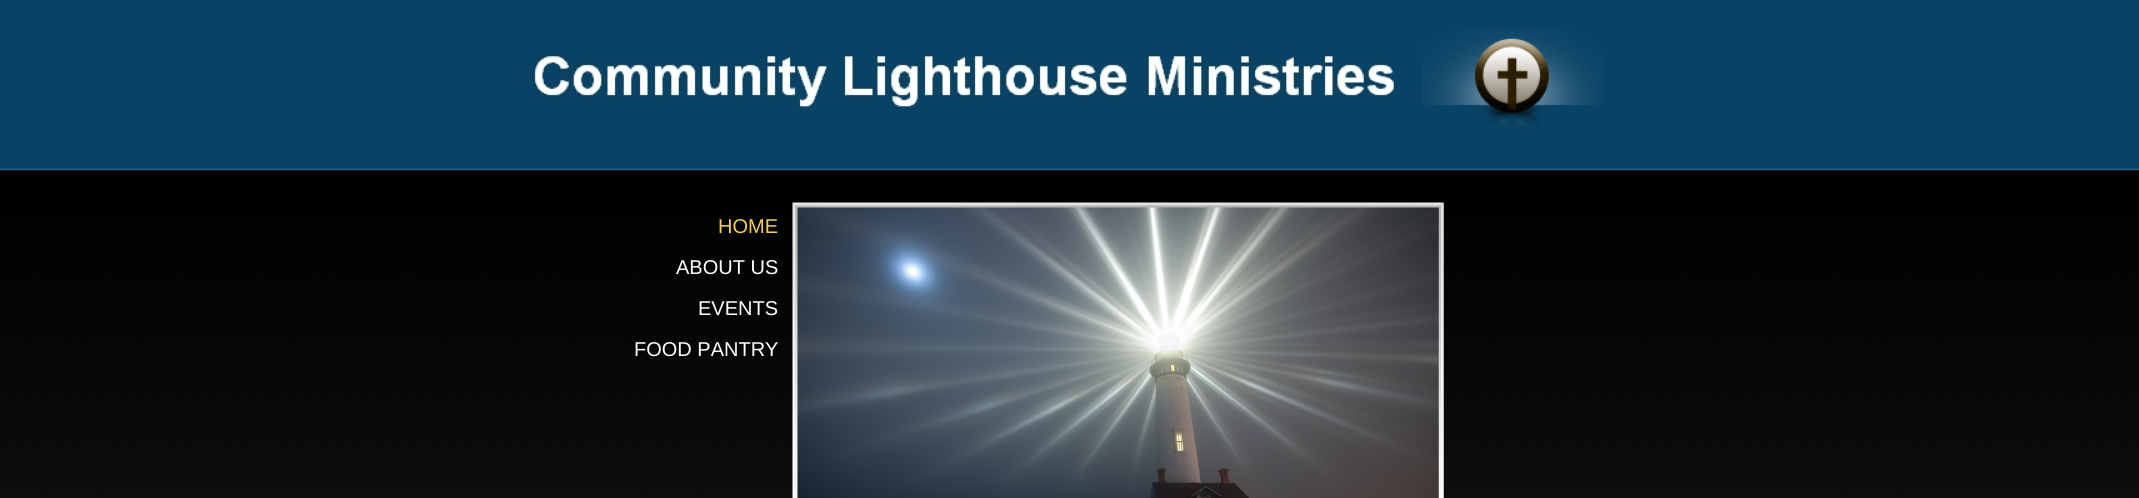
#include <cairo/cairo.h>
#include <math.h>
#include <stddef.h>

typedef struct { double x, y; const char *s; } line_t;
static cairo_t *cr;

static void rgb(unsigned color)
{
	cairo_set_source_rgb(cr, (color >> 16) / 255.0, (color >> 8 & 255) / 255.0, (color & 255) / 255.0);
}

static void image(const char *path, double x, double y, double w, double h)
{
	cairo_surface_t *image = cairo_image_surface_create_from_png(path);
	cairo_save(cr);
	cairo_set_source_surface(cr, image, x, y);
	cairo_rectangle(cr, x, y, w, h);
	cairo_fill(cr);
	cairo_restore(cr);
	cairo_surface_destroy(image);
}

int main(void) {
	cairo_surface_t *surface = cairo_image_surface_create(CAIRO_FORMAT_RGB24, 2139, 498);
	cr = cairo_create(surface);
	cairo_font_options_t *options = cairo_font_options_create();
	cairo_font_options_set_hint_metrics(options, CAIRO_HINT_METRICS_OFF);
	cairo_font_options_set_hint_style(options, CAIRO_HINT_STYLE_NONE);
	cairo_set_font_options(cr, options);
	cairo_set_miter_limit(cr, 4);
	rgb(0xffffff);
	cairo_paint(cr);
	image("img/1.png", 0, 0, 2139, 498);
	image("img/3.png", 1418, 28, 186, 98);
	image("img/2.png", 533, 55, 889, 53);
	image("img/4.png", 792, 202, 652, 296);
	image("img/5.png", 797, 207, 642, 291);
	cairo_select_font_face(cr, "Liberation Sans", CAIRO_FONT_SLANT_NORMAL, CAIRO_FONT_WEIGHT_NORMAL);
	cairo_set_font_size(cr, 20);
	rgb(0xf4ce53);
	cairo_move_to(cr, 718, 233);
	cairo_show_text(cr, "HOME");
	rgb(0xffffff);
	{
		static const line_t items[] = {
			{676, 274, "ABOUT US"},
			{698, 315, "EVENTS"},
			{634, 356, "FOOD PANTRY"},
		};
		for (size_t i = 0; i < sizeof items / sizeof *items; i++) {
			cairo_move_to(cr, items[i].x, items[i].y);
			cairo_show_text(cr, items[i].s);
		}
	}
	cairo_surface_write_to_png(surface, "page.png");
	cairo_font_options_destroy(options);
	cairo_destroy(cr);
	cairo_surface_destroy(surface);
	return 0;
}
